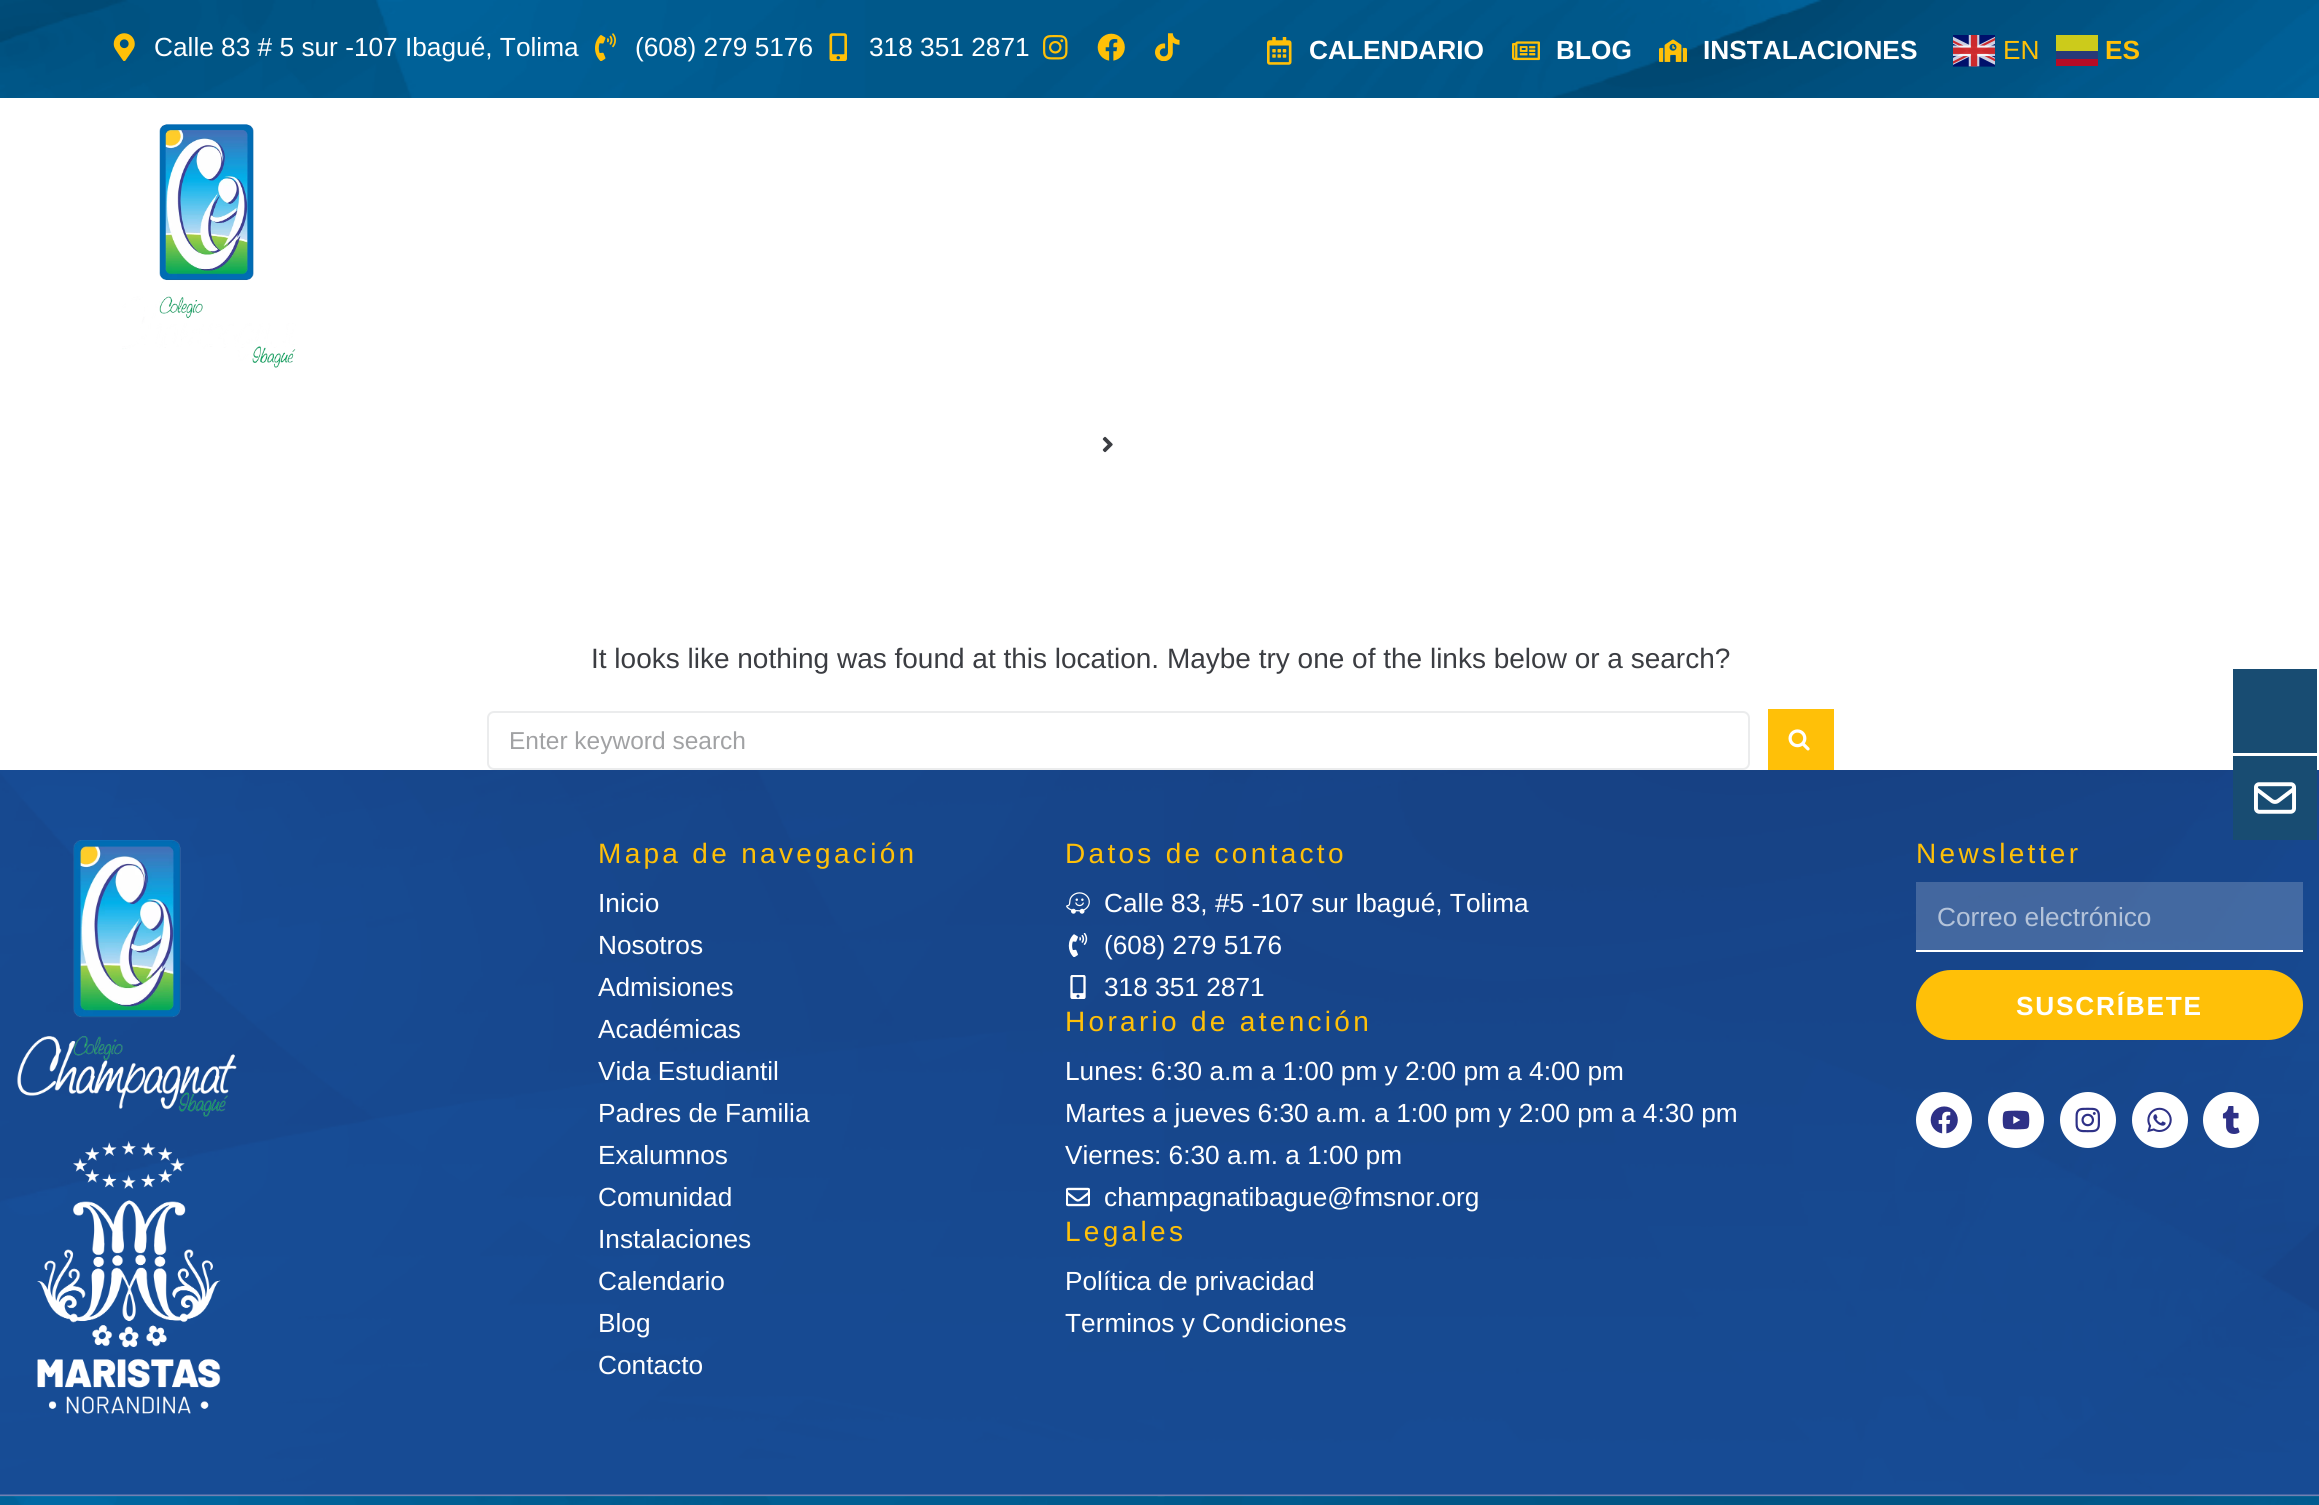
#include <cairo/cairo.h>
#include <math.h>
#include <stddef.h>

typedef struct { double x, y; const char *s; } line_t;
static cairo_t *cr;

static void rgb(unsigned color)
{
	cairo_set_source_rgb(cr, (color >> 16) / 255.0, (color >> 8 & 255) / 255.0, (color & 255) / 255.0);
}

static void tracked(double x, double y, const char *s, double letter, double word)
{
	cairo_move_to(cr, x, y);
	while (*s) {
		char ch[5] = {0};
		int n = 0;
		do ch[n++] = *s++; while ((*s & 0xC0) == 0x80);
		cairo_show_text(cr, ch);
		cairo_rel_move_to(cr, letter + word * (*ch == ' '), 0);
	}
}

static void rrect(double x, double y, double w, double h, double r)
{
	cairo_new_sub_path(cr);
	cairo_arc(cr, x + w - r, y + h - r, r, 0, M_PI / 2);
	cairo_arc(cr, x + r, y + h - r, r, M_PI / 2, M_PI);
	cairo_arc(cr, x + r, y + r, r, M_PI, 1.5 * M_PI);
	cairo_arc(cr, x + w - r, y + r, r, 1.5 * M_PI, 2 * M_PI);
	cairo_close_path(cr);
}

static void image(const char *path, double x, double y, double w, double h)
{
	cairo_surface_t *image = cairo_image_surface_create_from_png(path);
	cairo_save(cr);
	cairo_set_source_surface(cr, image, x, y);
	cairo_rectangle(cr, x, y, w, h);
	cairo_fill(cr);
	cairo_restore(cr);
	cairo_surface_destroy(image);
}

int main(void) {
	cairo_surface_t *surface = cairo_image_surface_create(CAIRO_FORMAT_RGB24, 2319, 1505);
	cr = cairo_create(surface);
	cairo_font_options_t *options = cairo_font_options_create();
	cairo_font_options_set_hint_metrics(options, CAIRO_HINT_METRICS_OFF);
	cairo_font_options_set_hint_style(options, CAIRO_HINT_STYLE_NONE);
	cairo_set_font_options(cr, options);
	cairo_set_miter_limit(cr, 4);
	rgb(0xffffff);
	cairo_paint(cr);
	image("img/1.png", 0, 0, 2319, 98);
	image("img/2.png", 113, 33, 22, 28);
	image("img/3.png", 595, 33, 21, 28);
	image("img/4.png", 829, 33, 18, 28);
	image("img/5.png", 1043, 35, 25, 25);
	image("img/6.png", 1097, 33, 28, 28);
	image("img/7.png", 1155, 33, 25, 28);
	image("img/8.png", 1267, 37, 25, 28);
	image("img/9.png", 1512, 41, 28, 20);
	image("img/10.png", 1659, 39, 28, 23);
	image("img/11.png", 1953, 35, 42, 32);
	cairo_set_source_rgba(cr, 1, 0.91, 0, 0.8);
	cairo_rectangle(cr, 2056, 35, 42, 16);
	cairo_fill(cr);
	rgb(0x293977);
	cairo_rectangle(cr, 2056, 51, 42, 8);
	cairo_fill(cr);
	rgb(0xb70b25);
	cairo_rectangle(cr, 2056, 59, 42, 7);
	cairo_fill(cr);
	image("img/12.png", 122, 124, 174, 244);
	image("img/13.png", 1102, 436, 11, 17);
	rrect(488, 712, 1261, 57, 6);
	rgb(0xebeced);
	cairo_stroke(cr);
	rgb(0xffc008);
	cairo_rectangle(cr, 1768, 709, 66, 61);
	cairo_fill(cr);
	image("img/14.png", 1788, 729, 22, 22);
	rgb(0xf2f2f2);
	cairo_rectangle(cr, 0, 1494, 2319, 2);
	cairo_fill(cr);
	image("img/27.png", 0, 1496, 2319, 9);
	image("img/15.png", 0, 770, 2319, 727);
	cairo_set_source_rgba(cr, 0.18, 0.192, 0.529, 0.5);
	cairo_rectangle(cr, 0, 770, 2319, 726);
	cairo_fill(cr);
	image("img/16.png", 17, 840, 220, 277);
	image("img/17.png", 37, 1141, 184, 273);
	image("img/18.png", 1066, 892, 24, 22);
	image("img/19.png", 1068, 933, 20, 24);
	image("img/20.png", 1070, 975, 16, 24);
	image("img/21.png", 1066, 1187, 24, 20);
	cairo_set_source_rgba(cr, 1, 1, 1, 0.19);
	cairo_rectangle(cr, 1916, 882, 387, 68);
	cairo_fill(cr);
	rgb(0xffffff);
	cairo_rectangle(cr, 1916, 950, 387, 2);
	cairo_fill(cr);
	rgb(0xffc008);
	rrect(1916, 970, 387, 70, 35);
	cairo_fill(cr);
	rgb(0xffffff);
	cairo_arc(cr, 1944, 1120, 28, 0, 2 * M_PI);
	cairo_fill(cr);
	image("img/22.png", 1930, 1106, 28, 28);
	cairo_arc(cr, 2016, 1120, 28, 0, 2 * M_PI);
	cairo_fill(cr);
	image("img/23.png", 2002, 1110, 28, 20);
	cairo_arc(cr, 2088, 1120, 28, 0, 2 * M_PI);
	cairo_fill(cr);
	image("img/24.png", 2075, 1107, 25, 26);
	cairo_arc(cr, 2160, 1120, 28, 0, 2 * M_PI);
	cairo_fill(cr);
	image("img/25.png", 2147, 1107, 25, 26);
	cairo_arc(cr, 2231, 1120, 28, 0, 2 * M_PI);
	cairo_fill(cr);
	image("img/26.png", 2222, 1106, 18, 28);
	rgb(0x184c72);
	cairo_rectangle(cr, 2233, 669, 84, 84);
	cairo_fill(cr);
	cairo_rectangle(cr, 2233, 756, 84, 84);
	cairo_fill(cr);
	image("img/28.png", 2254, 782, 42, 32);
	cairo_select_font_face(cr, "Liberation Sans", CAIRO_FONT_SLANT_NORMAL, CAIRO_FONT_WEIGHT_NORMAL);
	cairo_set_font_size(cr, 26.25);
	rgb(0xffffff);
	{
		static const line_t items[] = {
			{154, 56, "Calle 83 # 5 sur -107 Ibagué, Tolima"},
			{635, 56, "(608) 279 5176"},
			{869, 56, "318 351 2871"},
		};
		for (size_t i = 0; i < sizeof items / sizeof *items; i++) {
			cairo_move_to(cr, items[i].x, items[i].y);
			cairo_show_text(cr, items[i].s);
		}
	}
	cairo_select_font_face(cr, "Liberation Sans", CAIRO_FONT_SLANT_NORMAL, CAIRO_FONT_WEIGHT_BOLD);
	{
		static const line_t items[] = {
			{1309, 59, "CALENDARIO"},
			{1556, 59, "BLOG"},
			{1703, 59, "INSTALACIONES"},
		};
		for (size_t i = 0; i < sizeof items / sizeof *items; i++) {
			cairo_move_to(cr, items[i].x, items[i].y);
			cairo_show_text(cr, items[i].s);
		}
	}
	cairo_select_font_face(cr, "Liberation Sans", CAIRO_FONT_SLANT_NORMAL, CAIRO_FONT_WEIGHT_NORMAL);
	rgb(0xffc008);
	cairo_move_to(cr, 2003, 59);
	cairo_show_text(cr, "EN");
	cairo_select_font_face(cr, "Liberation Sans", CAIRO_FONT_SLANT_NORMAL, CAIRO_FONT_WEIGHT_BOLD);
	cairo_move_to(cr, 2105, 59);
	cairo_show_text(cr, "ES");
	cairo_select_font_face(cr, "Liberation Sans", CAIRO_FONT_SLANT_NORMAL, CAIRO_FONT_WEIGHT_NORMAL);
	cairo_set_font_size(cr, 28);
	rgb(0x3b3d42);
	cairo_move_to(cr, 591, 668);
	cairo_show_text(cr, "It looks like nothing was found at this location. Maybe try one of the links below or a search?");
	cairo_set_font_size(cr, 24.5);
	rgb(0xa1a2a4);
	cairo_move_to(cr, 509, 749);
	cairo_show_text(cr, "Enter keyword search");
	cairo_set_font_size(cr, 28);
	rgb(0xffc008);
	tracked(598, 863, "Mapa de navegación", 3.3, 0);
	cairo_set_font_size(cr, 26.25);
	rgb(0xffffff);
	{
		static const line_t items[] = {
			{598, 912, "Inicio"},
			{598, 954, "Nosotros"},
			{598, 996, "Admisiones"},
			{598, 1038, "Académicas"},
			{598, 1080, "Vida Estudiantil"},
			{598, 1122, "Padres de Familia"},
			{598, 1164, "Exalumnos"},
			{598, 1206, "Comunidad"},
			{598, 1248, "Instalaciones"},
			{598, 1290, "Calendario"},
			{598, 1332, "Blog"},
			{598, 1374, "Contacto"},
		};
		for (size_t i = 0; i < sizeof items / sizeof *items; i++) {
			cairo_move_to(cr, items[i].x, items[i].y);
			cairo_show_text(cr, items[i].s);
		}
	}
	cairo_set_font_size(cr, 28);
	rgb(0xffc008);
	tracked(1065, 863, "Datos de contacto", 3.3, 0);
	cairo_set_font_size(cr, 26.25);
	rgb(0xffffff);
	{
		static const line_t items[] = {
			{1104, 912, "Calle 83, #5 -107 sur Ibagué, Tolima"},
			{1104, 954, "(608) 279 5176"},
			{1104, 996, "318 351 2871"},
		};
		for (size_t i = 0; i < sizeof items / sizeof *items; i++) {
			cairo_move_to(cr, items[i].x, items[i].y);
			cairo_show_text(cr, items[i].s);
		}
	}
	cairo_set_font_size(cr, 28);
	rgb(0xffc008);
	tracked(1065, 1031, "Horario de atención", 3.3, 0);
	cairo_set_font_size(cr, 26.25);
	rgb(0xffffff);
	{
		static const line_t items[] = {
			{1065, 1080, "Lunes: 6:30 a.m a 1:00 pm y 2:00 pm a 4:00 pm"},
			{1065, 1122, "Martes a jueves 6:30 a.m. a 1:00 pm y 2:00 pm a 4:30 pm"},
			{1065, 1164, "Viernes: 6:30 a.m. a 1:00 pm"},
			{1104, 1206, "champagnatibague@fmsnor.org"},
		};
		for (size_t i = 0; i < sizeof items / sizeof *items; i++) {
			cairo_move_to(cr, items[i].x, items[i].y);
			cairo_show_text(cr, items[i].s);
		}
	}
	cairo_set_font_size(cr, 28);
	rgb(0xffc008);
	tracked(1065, 1241, "Legales", 3.3, 0);
	cairo_set_font_size(cr, 26.25);
	rgb(0xffffff);
	cairo_move_to(cr, 1065, 1290);
	cairo_show_text(cr, "Política de privacidad");
	cairo_move_to(cr, 1065, 1332);
	cairo_show_text(cr, "Terminos y Condiciones");
	cairo_set_font_size(cr, 28);
	rgb(0xffc008);
	tracked(1916, 863, "Newsletter", 3.3, 0);
	cairo_set_font_size(cr, 26.25);
	rgb(0xb4c3d9);
	cairo_move_to(cr, 1937, 926);
	cairo_show_text(cr, "Correo electrónico");
	cairo_select_font_face(cr, "Liberation Sans", CAIRO_FONT_SLANT_NORMAL, CAIRO_FONT_WEIGHT_BOLD);
	rgb(0xffffff);
	tracked(2016, 1015, "SUSCRÍBETE", 1.75, 0);
	cairo_surface_write_to_png(surface, "page.png");
	cairo_font_options_destroy(options);
	cairo_destroy(cr);
	cairo_surface_destroy(surface);
	return 0;
}
